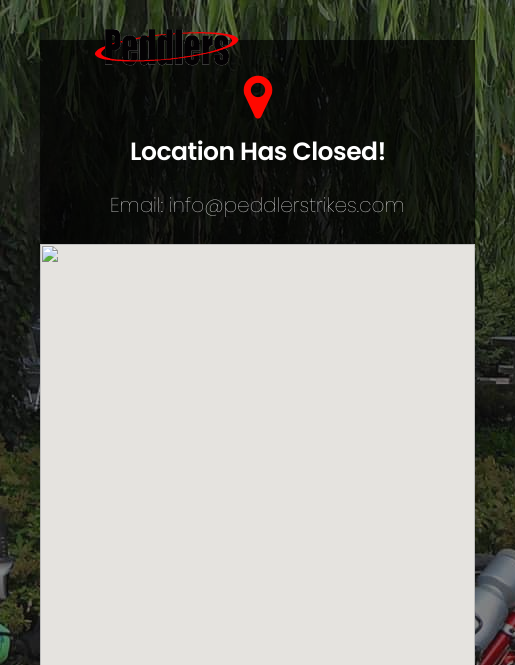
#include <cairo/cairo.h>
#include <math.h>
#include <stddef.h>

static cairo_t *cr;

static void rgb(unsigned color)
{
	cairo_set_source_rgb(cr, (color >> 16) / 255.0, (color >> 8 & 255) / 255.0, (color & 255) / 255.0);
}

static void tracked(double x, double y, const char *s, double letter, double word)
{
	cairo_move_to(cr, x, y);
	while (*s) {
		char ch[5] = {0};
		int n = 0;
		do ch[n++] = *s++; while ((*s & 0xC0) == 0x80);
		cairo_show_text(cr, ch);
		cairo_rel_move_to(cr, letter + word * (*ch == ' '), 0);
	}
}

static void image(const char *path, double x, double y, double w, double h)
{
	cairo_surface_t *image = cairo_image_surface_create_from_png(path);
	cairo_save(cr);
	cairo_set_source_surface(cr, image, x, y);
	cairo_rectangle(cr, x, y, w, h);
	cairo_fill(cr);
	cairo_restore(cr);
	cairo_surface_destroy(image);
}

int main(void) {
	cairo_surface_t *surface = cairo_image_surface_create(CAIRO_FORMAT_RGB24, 515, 665);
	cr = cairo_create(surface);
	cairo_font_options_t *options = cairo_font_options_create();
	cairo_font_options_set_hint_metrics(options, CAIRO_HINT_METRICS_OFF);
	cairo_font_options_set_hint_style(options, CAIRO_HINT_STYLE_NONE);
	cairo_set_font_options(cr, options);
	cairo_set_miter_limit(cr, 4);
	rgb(0xffffff);
	cairo_paint(cr);
	image("img/2.png", 0, 0, 515, 665);
	cairo_set_source_rgba(cr, 0, 0, 0, 0.65);
	cairo_rectangle(cr, 40, 40, 435, 204);
	cairo_fill(cr);
	image("img/1.png", 94, 29, 145, 37);
	image("img/3.png", 243, 75, 30, 44);
	image("img/4.png", 40, 244, 435, 421);
	cairo_select_font_face(cr, "Poppins SemiBold", CAIRO_FONT_SLANT_NORMAL, CAIRO_FONT_WEIGHT_NORMAL);
	cairo_set_font_size(cr, 25);
	rgb(0xffffff);
	tracked(130, 160, "Location Has Closed!", -0.5, 0);
	cairo_select_font_face(cr, "Poppins Thin", CAIRO_FONT_SLANT_NORMAL, CAIRO_FONT_WEIGHT_NORMAL);
	cairo_set_font_size(cr, 20);
	cairo_move_to(cr, 110, 212);
	cairo_show_text(cr, "Email: info@peddlerstrikes.com");
	cairo_surface_write_to_png(surface, "page.png");
	cairo_font_options_destroy(options);
	cairo_destroy(cr);
	cairo_surface_destroy(surface);
	return 0;
}
